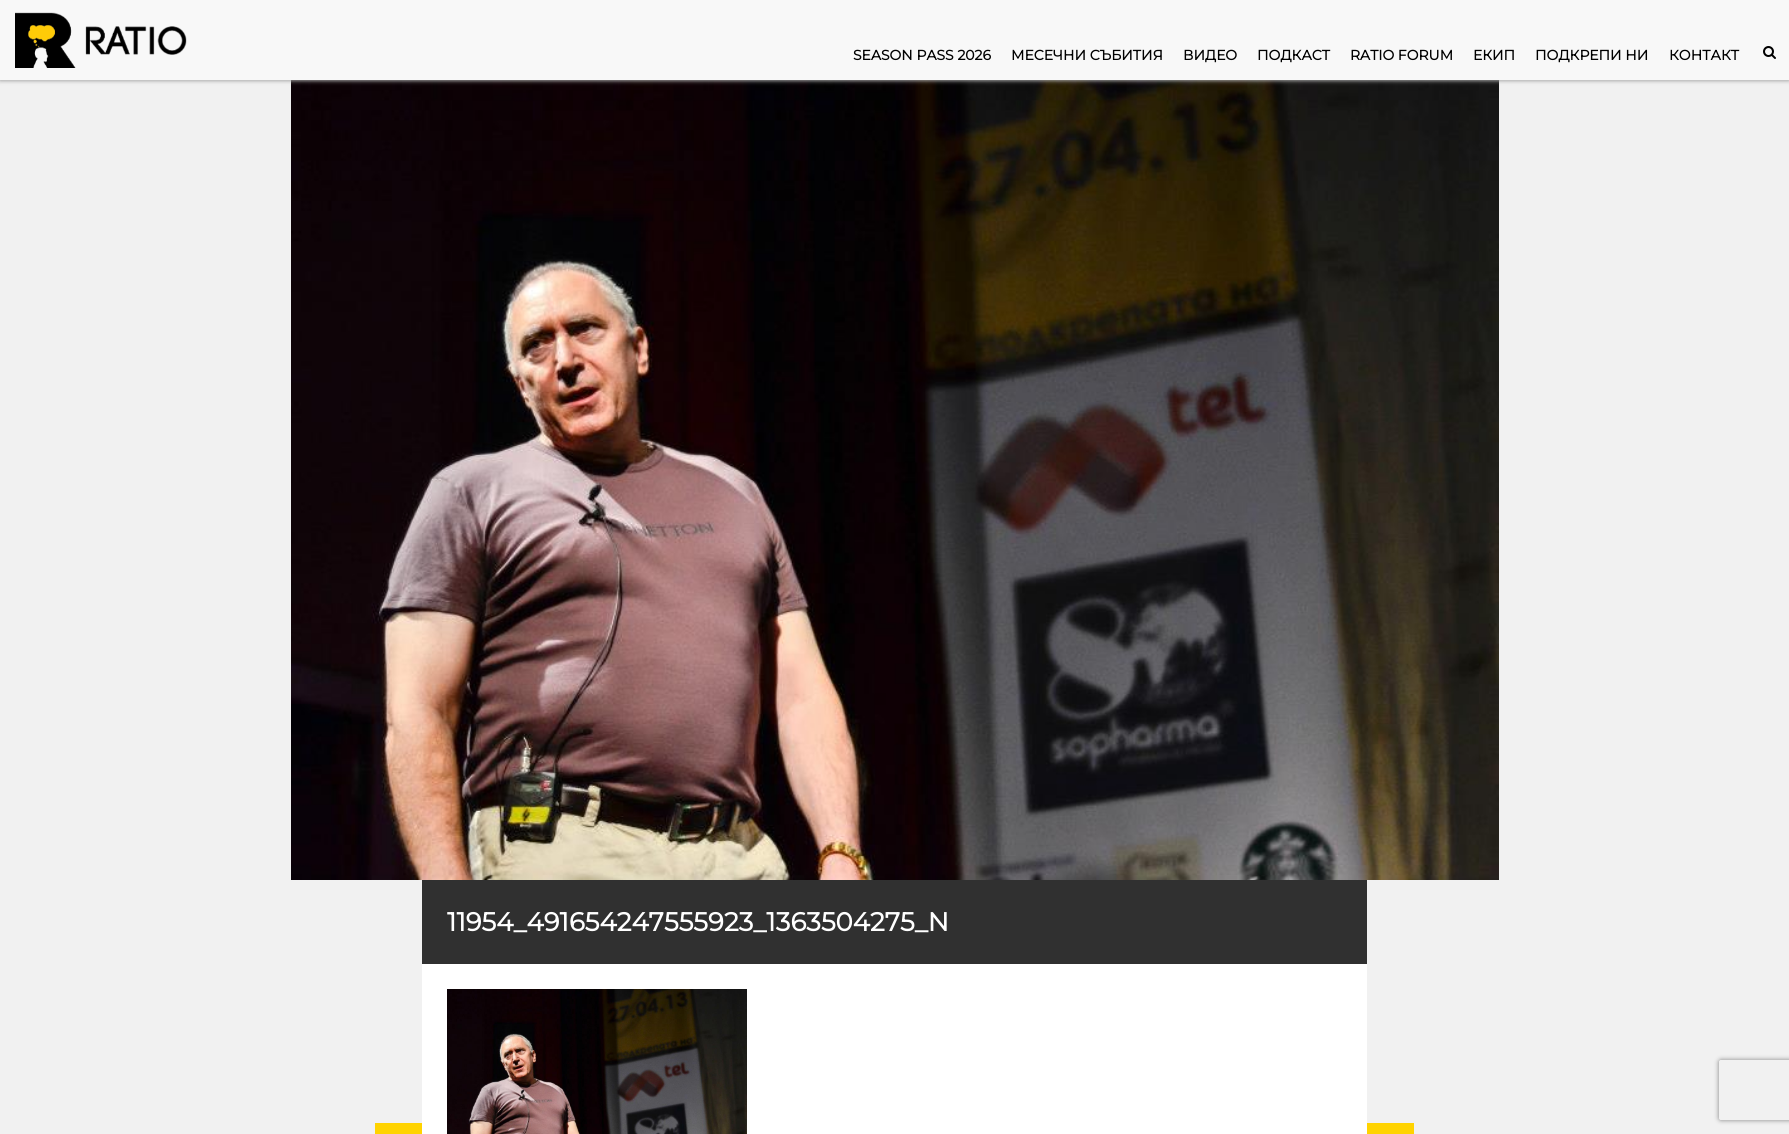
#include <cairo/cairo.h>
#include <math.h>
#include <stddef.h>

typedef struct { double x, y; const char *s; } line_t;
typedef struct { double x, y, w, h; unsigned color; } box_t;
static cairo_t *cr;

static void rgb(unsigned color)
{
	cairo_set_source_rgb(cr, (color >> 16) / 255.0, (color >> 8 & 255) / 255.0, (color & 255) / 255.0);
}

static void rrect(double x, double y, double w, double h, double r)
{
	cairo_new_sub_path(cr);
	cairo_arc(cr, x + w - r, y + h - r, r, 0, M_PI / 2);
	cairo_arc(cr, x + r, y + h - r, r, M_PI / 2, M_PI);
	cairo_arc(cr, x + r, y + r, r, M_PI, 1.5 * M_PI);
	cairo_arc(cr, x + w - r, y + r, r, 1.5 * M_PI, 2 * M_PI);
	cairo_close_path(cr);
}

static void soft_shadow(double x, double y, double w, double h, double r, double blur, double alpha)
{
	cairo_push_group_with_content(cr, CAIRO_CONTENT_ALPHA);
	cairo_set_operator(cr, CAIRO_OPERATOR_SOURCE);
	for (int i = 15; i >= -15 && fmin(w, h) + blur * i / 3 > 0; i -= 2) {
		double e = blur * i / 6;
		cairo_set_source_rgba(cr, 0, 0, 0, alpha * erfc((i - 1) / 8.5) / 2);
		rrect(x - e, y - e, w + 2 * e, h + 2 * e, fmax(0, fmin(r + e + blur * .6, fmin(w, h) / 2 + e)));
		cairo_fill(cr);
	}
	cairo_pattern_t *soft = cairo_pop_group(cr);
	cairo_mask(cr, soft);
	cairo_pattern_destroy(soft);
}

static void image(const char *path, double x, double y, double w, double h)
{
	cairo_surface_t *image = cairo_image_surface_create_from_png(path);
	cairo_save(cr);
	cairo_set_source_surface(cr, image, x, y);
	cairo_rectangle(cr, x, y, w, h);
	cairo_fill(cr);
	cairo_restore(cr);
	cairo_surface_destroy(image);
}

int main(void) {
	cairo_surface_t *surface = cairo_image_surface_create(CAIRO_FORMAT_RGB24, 1789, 1134);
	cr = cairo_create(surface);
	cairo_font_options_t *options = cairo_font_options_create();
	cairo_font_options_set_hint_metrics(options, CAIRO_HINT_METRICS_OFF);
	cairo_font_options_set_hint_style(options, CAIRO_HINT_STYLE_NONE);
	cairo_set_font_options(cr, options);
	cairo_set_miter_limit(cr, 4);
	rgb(0xf1f1f1);
	cairo_paint(cr);
	image("img/3.png", 291, 80, 1208, 800);
	rgb(0xa7a7a7);
	soft_shadow(0, 1, 1789, 80, 0, 2, 1);
	rgb(0xf8f8f8);
	cairo_rectangle(cr, 0, 0, 1789, 80);
	cairo_fill(cr);
	image("img/1.png", 15, 12, 172, 56);
	image("img/2.png", 1763, 46, 13, 13);
	{
		static const box_t items[] = {
			{422, 880, 945, 84, 0x303030},
			{375, 1123, 1039, 11, 0xffd300},
			{422, 964, 945, 170, 0xffffff},
		};
		for (size_t i = 0; i < sizeof items / sizeof *items; i++) {
			rgb(items[i].color);
			cairo_rectangle(cr, items[i].x, items[i].y, items[i].w, items[i].h);
			cairo_fill(cr);
		}
	}
	image("img/4.png", 447, 989, 300, 145);
	cairo_save(cr);
	cairo_set_fill_rule(cr, CAIRO_FILL_RULE_EVEN_ODD);
	cairo_new_path(cr);
	cairo_move_to(cr, 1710, 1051);
	cairo_line_to(cr, 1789, 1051);
	cairo_line_to(cr, 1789, 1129);
	cairo_line_to(cr, 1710, 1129);
	cairo_close_path(cr);
	cairo_move_to(cr, 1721, 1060);
	cairo_line_to(cr, 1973, 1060);
	cairo_curve_to(cr, 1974, 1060, 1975, 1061, 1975, 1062);
	cairo_line_to(cr, 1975, 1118);
	cairo_curve_to(cr, 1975, 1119, 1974, 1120, 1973, 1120);
	cairo_line_to(cr, 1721, 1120);
	cairo_curve_to(cr, 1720, 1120, 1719, 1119, 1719, 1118);
	cairo_line_to(cr, 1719, 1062);
	cairo_curve_to(cr, 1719, 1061, 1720, 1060, 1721, 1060);
	cairo_close_path(cr);
	cairo_clip(cr);
	rgb(0x808080);
	soft_shadow(1719, 1060, 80, 60, 2, 2.5, 1);
	cairo_restore(cr);
	cairo_select_font_face(cr, "Montserrat", CAIRO_FONT_SLANT_NORMAL, CAIRO_FONT_WEIGHT_BOLD);
	cairo_set_font_size(cr, 14);
	rgb(0x000000);
	{
		static const line_t items[] = {
			{853, 60, "SEASON PASS 2026"},
			{1011, 60, "МЕСЕЧНИ СЪБИТИЯ"},
			{1183, 60, "ВИДЕО"},
			{1257, 60, "ПОДКАСТ"},
			{1350, 60, "RATIO FORUM"},
			{1473, 60, "ЕКИП"},
			{1535, 60, "ПОДКРЕПИ НИ"},
			{1669, 60, "КОНТАКТ"},
		};
		for (size_t i = 0; i < sizeof items / sizeof *items; i++) {
			cairo_move_to(cr, items[i].x, items[i].y);
			cairo_show_text(cr, items[i].s);
		}
	}
	cairo_set_font_size(cr, 26);
	rgb(0xffffff);
	cairo_move_to(cr, 447, 931);
	cairo_show_text(cr, "11954_491654247555923_1363504275_N");
	cairo_surface_write_to_png(surface, "page.png");
	cairo_font_options_destroy(options);
	cairo_destroy(cr);
	cairo_surface_destroy(surface);
	return 0;
}
